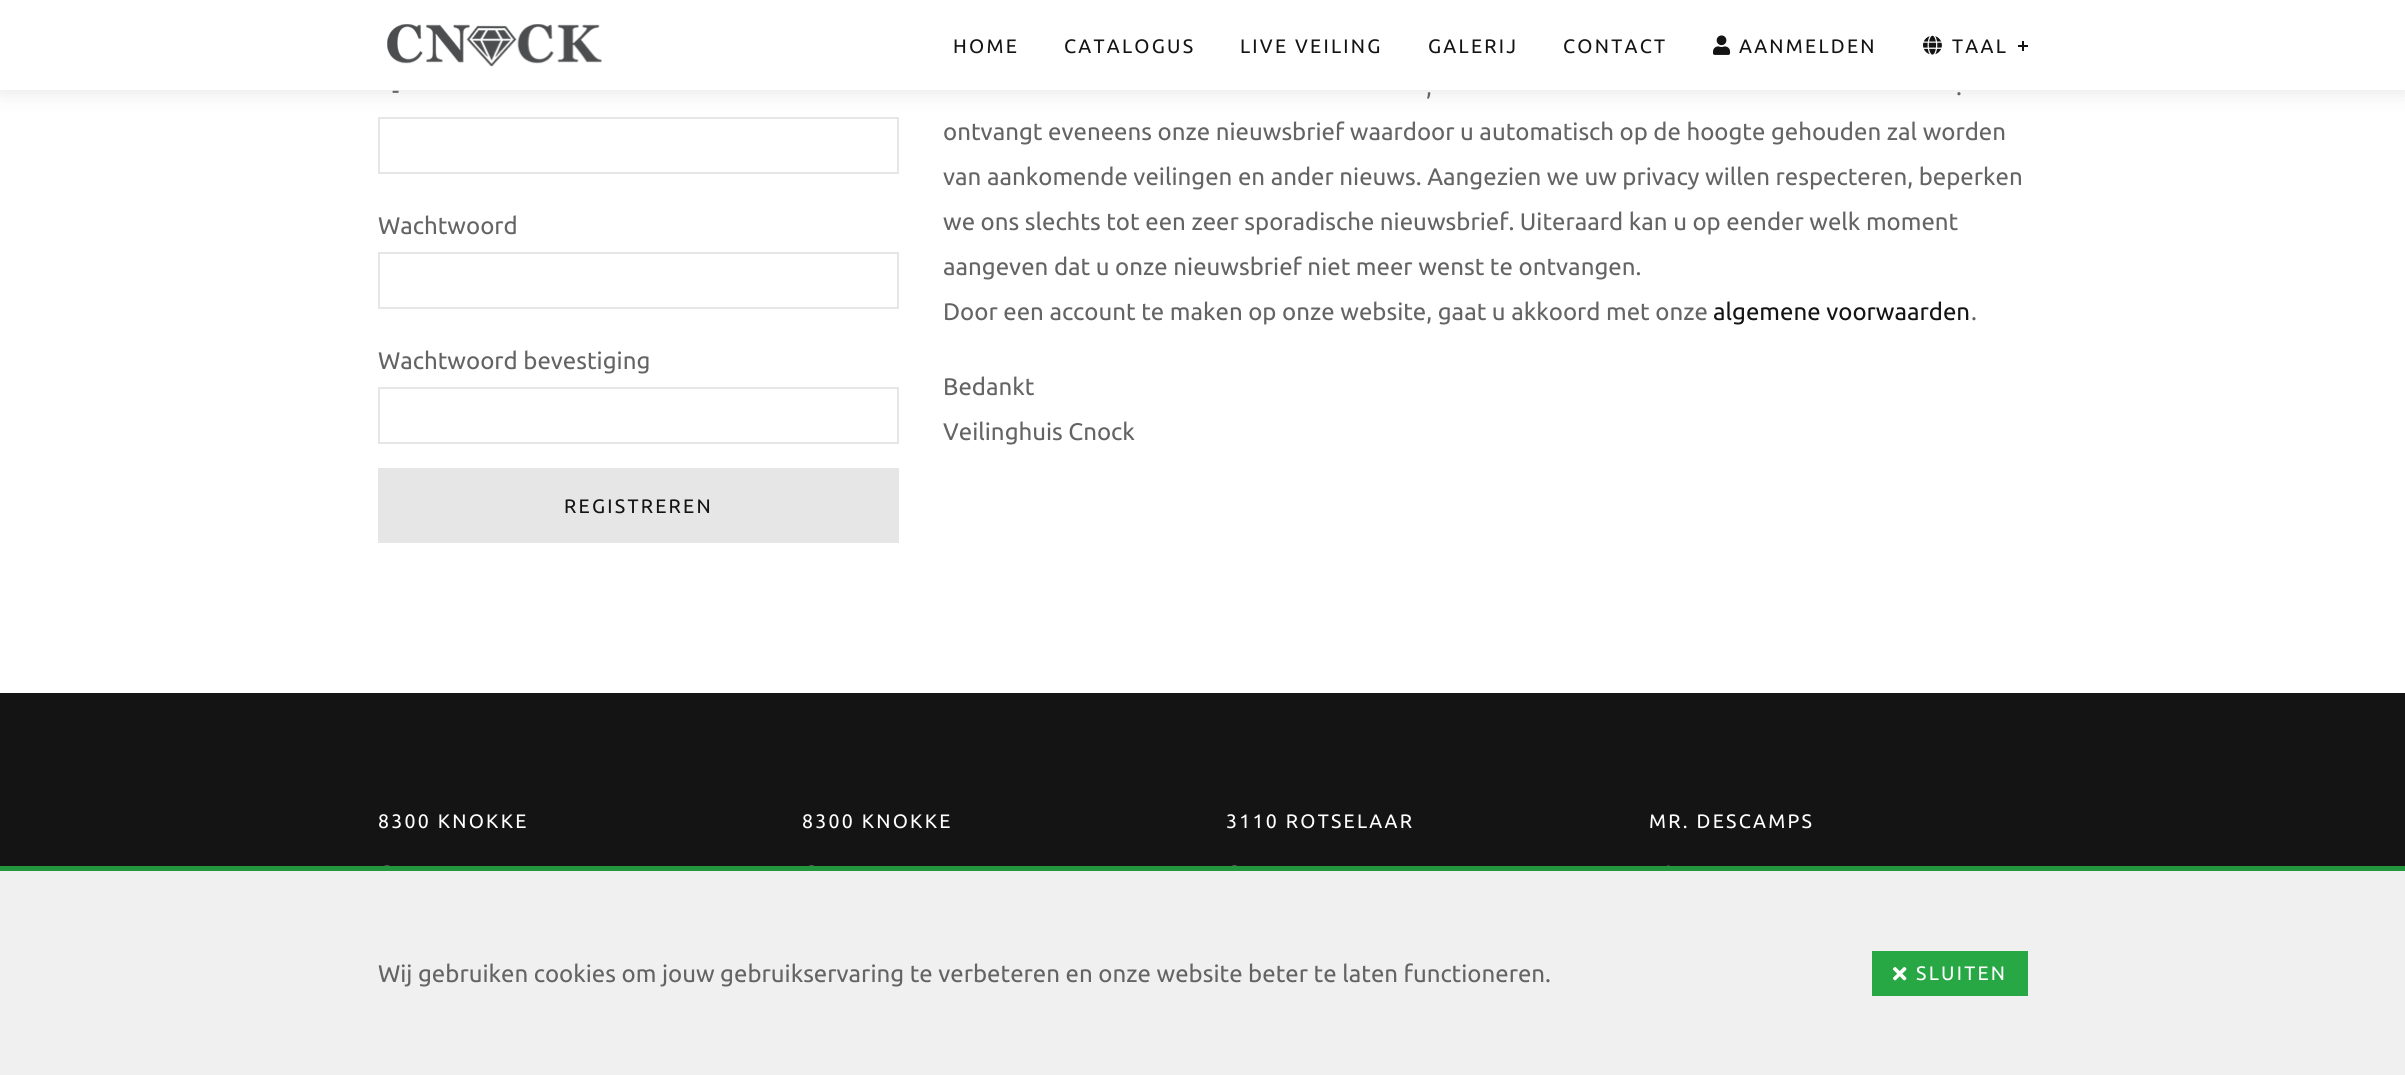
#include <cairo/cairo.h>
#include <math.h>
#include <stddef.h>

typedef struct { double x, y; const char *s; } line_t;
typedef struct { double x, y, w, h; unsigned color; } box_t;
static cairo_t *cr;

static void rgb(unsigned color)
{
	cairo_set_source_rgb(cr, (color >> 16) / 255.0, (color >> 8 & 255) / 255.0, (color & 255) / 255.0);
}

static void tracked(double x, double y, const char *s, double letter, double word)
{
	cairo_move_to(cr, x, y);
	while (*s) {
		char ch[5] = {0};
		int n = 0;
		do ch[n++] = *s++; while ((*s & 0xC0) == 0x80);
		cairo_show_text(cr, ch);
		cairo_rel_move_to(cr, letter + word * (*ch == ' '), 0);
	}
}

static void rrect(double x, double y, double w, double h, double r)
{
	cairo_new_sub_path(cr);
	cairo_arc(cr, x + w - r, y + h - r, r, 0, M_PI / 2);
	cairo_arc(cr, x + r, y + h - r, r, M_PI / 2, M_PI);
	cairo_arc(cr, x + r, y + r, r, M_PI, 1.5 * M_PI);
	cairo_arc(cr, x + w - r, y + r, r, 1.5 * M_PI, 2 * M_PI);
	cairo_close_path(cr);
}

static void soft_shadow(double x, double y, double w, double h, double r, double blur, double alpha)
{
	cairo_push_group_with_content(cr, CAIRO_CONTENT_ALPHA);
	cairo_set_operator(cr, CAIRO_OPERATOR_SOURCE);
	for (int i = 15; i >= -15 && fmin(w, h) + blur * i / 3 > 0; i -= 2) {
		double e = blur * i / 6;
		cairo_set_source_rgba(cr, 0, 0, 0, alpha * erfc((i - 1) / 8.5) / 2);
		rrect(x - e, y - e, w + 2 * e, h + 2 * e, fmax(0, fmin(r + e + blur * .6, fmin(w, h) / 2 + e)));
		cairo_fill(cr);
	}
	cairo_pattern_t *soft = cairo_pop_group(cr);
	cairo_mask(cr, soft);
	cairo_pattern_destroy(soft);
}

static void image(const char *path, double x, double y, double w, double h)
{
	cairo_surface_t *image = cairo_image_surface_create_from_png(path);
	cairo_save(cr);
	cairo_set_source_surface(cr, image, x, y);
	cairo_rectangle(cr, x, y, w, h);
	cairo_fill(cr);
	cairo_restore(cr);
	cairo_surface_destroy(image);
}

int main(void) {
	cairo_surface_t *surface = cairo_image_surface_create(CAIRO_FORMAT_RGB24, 2405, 1075);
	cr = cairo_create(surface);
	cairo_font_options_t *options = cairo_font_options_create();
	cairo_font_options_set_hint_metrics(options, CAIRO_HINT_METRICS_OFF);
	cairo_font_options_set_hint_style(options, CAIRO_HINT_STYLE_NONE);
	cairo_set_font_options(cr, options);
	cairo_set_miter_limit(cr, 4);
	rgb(0xffffff);
	cairo_paint(cr);
	cairo_rectangle(cr, 379, 118, 519, 55);
	rgb(0xe6e6e6);
	cairo_stroke(cr);
	rgb(0x000000);
	soft_shadow(0, 3, 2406, 90, 0, 10.5, 0.09);
	rgb(0xffffff);
	cairo_rectangle(cr, 0, 0, 2405, 90);
	cairo_fill(cr);
	image("img/1.png", 387, 24, 215, 43);
	image("img/2.png", 1713, 35, 18, 20);
	image("img/3.png", 1923, 35, 19, 20);
	{
		static const box_t items[] = {
			{2018, 45, 10, 2, 0x141414},
			{2022, 41, 2, 10, 0x141414},
			{0, 871, 2405, 204, 0xf0f0f0},
			{0, 866, 2405, 5, 0x24963e},
			{1872, 951, 156, 45, 0x28a745},
		};
		for (size_t i = 0; i < sizeof items / sizeof *items; i++) {
			rgb(items[i].color);
			cairo_rectangle(cr, items[i].x, items[i].y, items[i].w, items[i].h);
			cairo_fill(cr);
		}
	}
	image("img/4.png", 1893, 967, 14, 14);
	cairo_rectangle(cr, 379, 253, 519, 55);
	rgb(0xe6e6e6);
	cairo_stroke(cr);
	cairo_rectangle(cr, 379, 388, 519, 55);
	cairo_stroke(cr);
	cairo_rectangle(cr, 378, 468, 521, 75);
	cairo_fill(cr);
	rgb(0x141414);
	cairo_rectangle(cr, 0, 693, 2405, 173);
	cairo_fill(cr);
	image("img/5.png", 384, 865, 6, 1);
	image("img/6.png", 809, 865, 5, 1);
	image("img/6.png", 1232, 865, 5, 1);
	image("img/7.png", 1667, 865, 3, 1);
	cairo_select_font_face(cr, "Ubuntu", CAIRO_FONT_SLANT_NORMAL, CAIRO_FONT_WEIGHT_NORMAL);
	cairo_set_font_size(cr, 19.5);
	{
		static const line_t items[] = {
			{953, 53, "HOME"},
			{1064, 53, "CATALOGUS"},
			{1240, 53, "LIVE VEILING"},
			{1428, 53, "GALERIJ"},
			{1563, 53, "CONTACT"},
			{1739, 53, "AANMELDEN"},
			{1952, 53, "TAAL"},
		};
		for (size_t i = 0; i < sizeof items / sizeof *items; i++) {
			tracked(items[i].x, items[i].y, items[i].s, 2.25, 0);
		}
	}
	cairo_set_font_size(cr, 24);
	rgb(0x646464);
	cairo_move_to(cr, 378, 982);
	cairo_show_text(cr, "Wij gebruiken cookies om jouw gebruikservaring te verbeteren en onze website beter te laten functioneren.");
	cairo_set_font_size(cr, 19.5);
	rgb(0xffffff);
	tracked(1916, 980, "SLUITEN", 2.25, 0);
	cairo_set_font_size(cr, 24);
	rgb(0x646464);
	{
		static const line_t items[] = {
			{392, 99, "-"},
			{378, 234, "Wachtwoord"},
			{378, 369, "Wachtwoord bevestiging"},
		};
		for (size_t i = 0; i < sizeof items / sizeof *items; i++) {
			cairo_move_to(cr, items[i].x, items[i].y);
			cairo_show_text(cr, items[i].s);
		}
	}
	cairo_set_font_size(cr, 19.5);
	rgb(0x141414);
	tracked(564, 513, "REGISTREREN", 2.25, 0);
	cairo_set_font_size(cr, 24);
	rgb(0x646464);
	{
		static const line_t items[] = {
			{1426, 95, ","},
			{1956, 95, "."},
			{943, 140, "ontvangt eveneens onze nieuwsbrief waardoor u automatisch op de hoogte gehouden zal worden"},
			{943, 185, "van aankomende veilingen en ander nieuws. Aangezien we uw privacy willen respecteren, beperken"},
			{943, 230, "we ons slechts tot een zeer sporadische nieuwsbrief. Uiteraard kan u op eender welk moment"},
			{943, 275, "aangeven dat u onze nieuwsbrief niet meer wenst te ontvangen."},
			{943, 320, "Door een account te maken op onze website, gaat u akkoord met onze"},
		};
		for (size_t i = 0; i < sizeof items / sizeof *items; i++) {
			cairo_move_to(cr, items[i].x, items[i].y);
			cairo_show_text(cr, items[i].s);
		}
	}
	rgb(0x141414);
	cairo_move_to(cr, 1713, 320);
	cairo_show_text(cr, "algemene voorwaarden");
	rgb(0x646464);
	{
		static const line_t items[] = {
			{1971, 320, "."},
			{943, 395, "Bedankt"},
			{943, 440, "Veilinghuis Cnock"},
		};
		for (size_t i = 0; i < sizeof items / sizeof *items; i++) {
			cairo_move_to(cr, items[i].x, items[i].y);
			cairo_show_text(cr, items[i].s);
		}
	}
	cairo_set_font_size(cr, 19.5);
	rgb(0xffffff);
	{
		static const line_t items[] = {
			{378, 828, "8300 KNOKKE"},
			{802, 828, "8300 KNOKKE"},
			{1226, 828, "3110 ROTSELAAR"},
			{1649, 828, "MR. DESCAMPS"},
		};
		for (size_t i = 0; i < sizeof items / sizeof *items; i++) {
			tracked(items[i].x, items[i].y, items[i].s, 2.25, 0);
		}
	}
	cairo_surface_write_to_png(surface, "page.png");
	cairo_font_options_destroy(options);
	cairo_destroy(cr);
	cairo_surface_destroy(surface);
	return 0;
}
